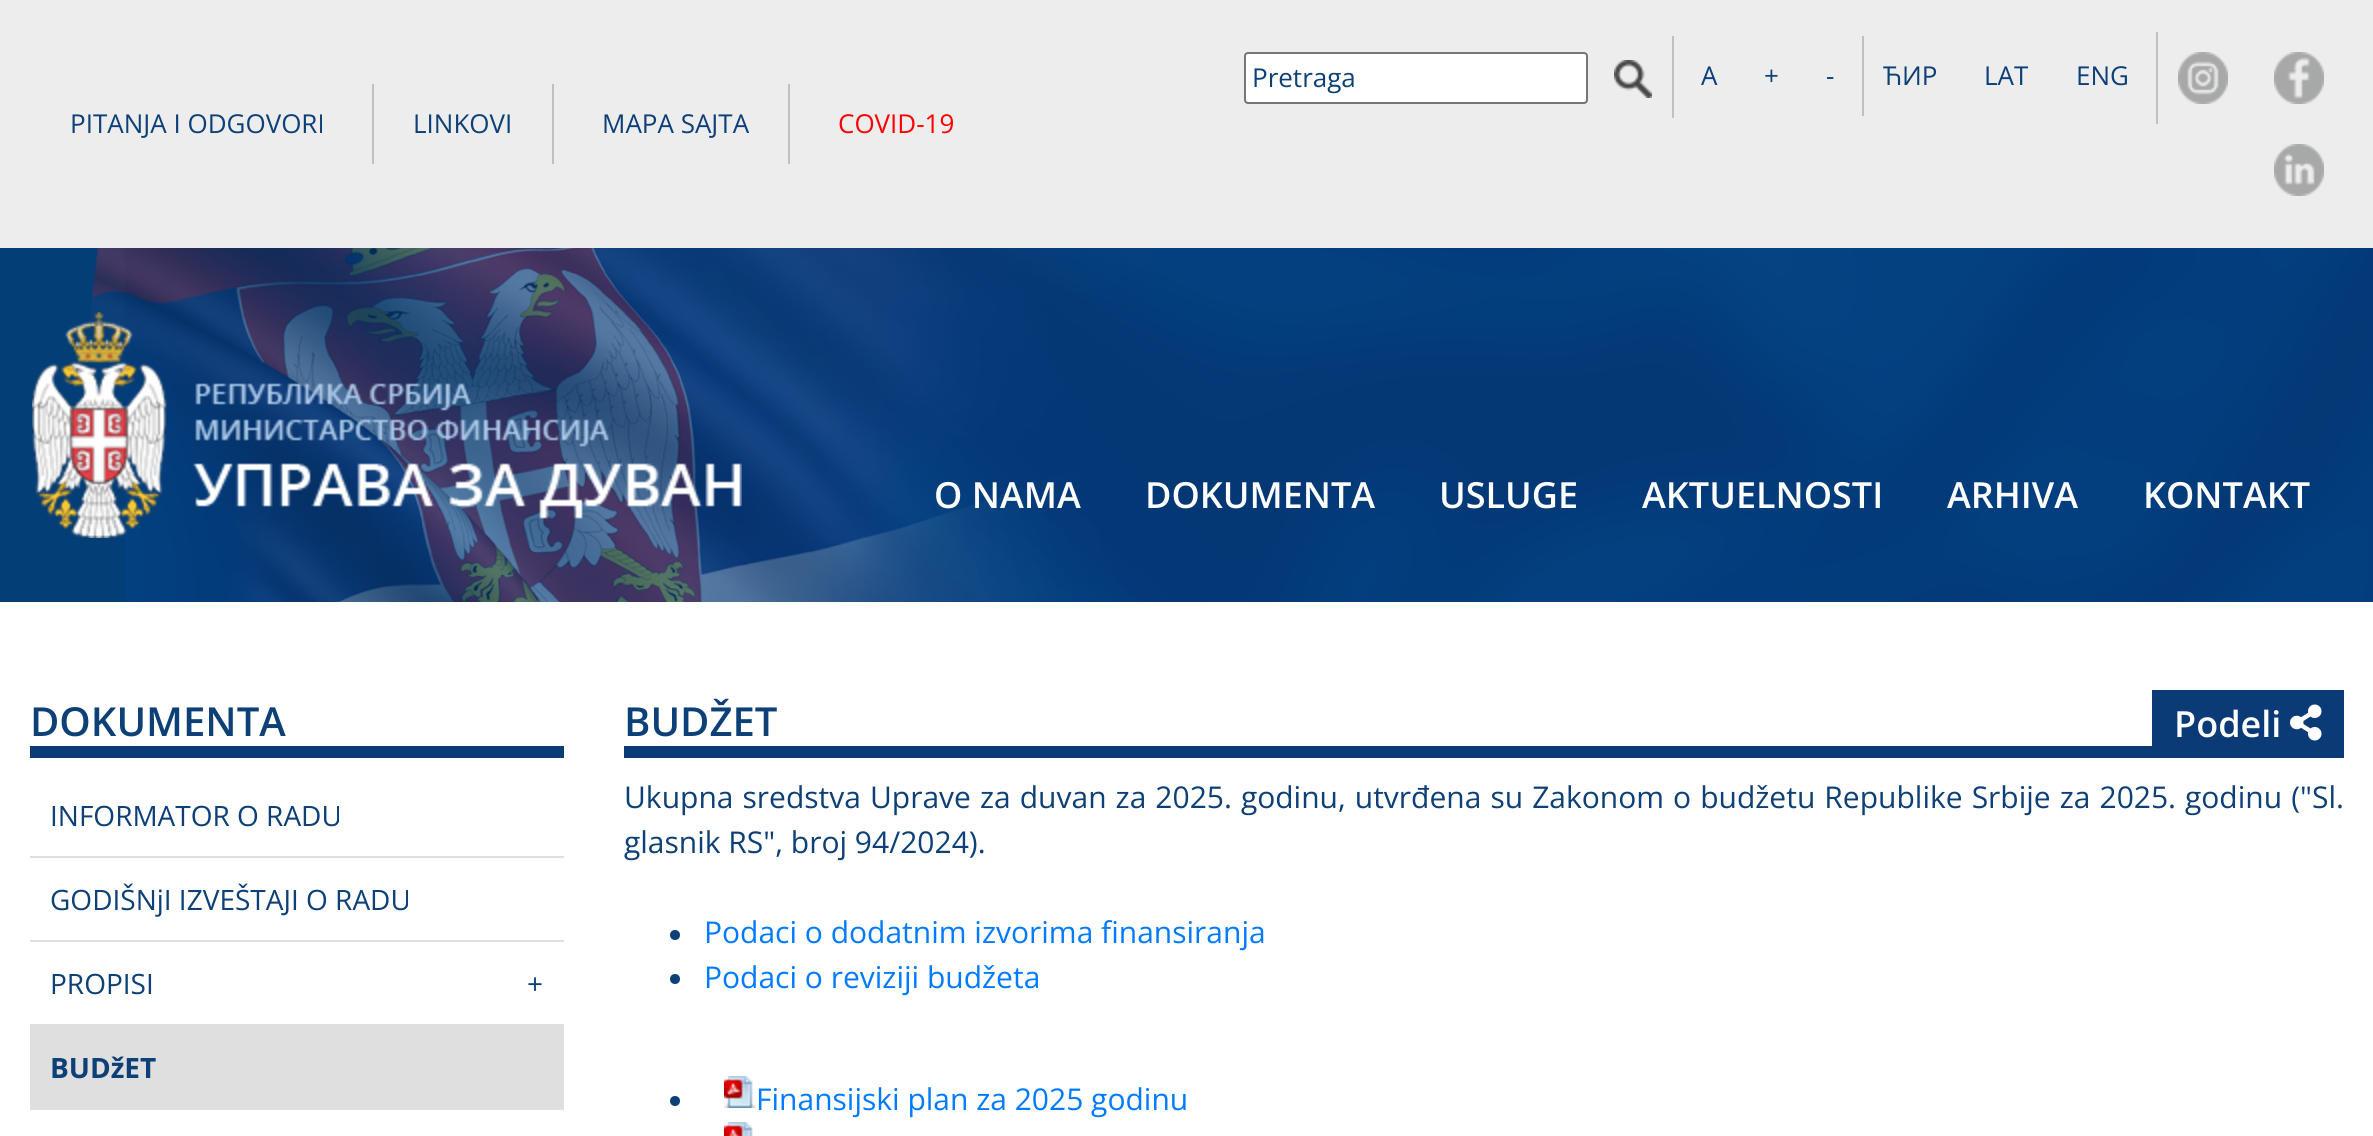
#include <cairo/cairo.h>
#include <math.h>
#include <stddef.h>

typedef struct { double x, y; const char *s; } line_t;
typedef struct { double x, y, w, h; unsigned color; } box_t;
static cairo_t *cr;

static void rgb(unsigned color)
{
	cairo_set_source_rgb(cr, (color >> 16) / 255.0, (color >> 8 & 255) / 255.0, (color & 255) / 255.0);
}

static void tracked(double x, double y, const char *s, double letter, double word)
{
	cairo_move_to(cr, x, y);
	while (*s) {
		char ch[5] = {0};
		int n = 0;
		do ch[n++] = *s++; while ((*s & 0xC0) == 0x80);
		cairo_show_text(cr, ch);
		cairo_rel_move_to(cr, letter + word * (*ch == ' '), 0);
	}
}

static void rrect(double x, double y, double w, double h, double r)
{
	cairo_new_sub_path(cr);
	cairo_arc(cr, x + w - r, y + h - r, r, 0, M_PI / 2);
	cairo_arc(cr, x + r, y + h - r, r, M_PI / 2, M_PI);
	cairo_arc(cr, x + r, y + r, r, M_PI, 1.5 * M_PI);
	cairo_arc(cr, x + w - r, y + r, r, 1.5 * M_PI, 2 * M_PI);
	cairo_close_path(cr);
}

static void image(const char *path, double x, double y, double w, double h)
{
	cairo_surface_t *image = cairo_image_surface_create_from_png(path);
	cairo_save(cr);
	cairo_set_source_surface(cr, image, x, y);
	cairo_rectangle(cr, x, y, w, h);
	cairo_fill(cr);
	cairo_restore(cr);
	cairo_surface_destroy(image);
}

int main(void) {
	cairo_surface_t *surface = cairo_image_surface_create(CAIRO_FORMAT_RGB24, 2373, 1136);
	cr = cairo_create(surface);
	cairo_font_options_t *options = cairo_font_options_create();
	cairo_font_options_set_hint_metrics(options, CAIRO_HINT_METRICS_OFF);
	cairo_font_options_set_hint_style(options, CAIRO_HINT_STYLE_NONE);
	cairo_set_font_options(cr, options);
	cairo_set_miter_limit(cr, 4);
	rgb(0xffffff);
	cairo_paint(cr);
	rgb(0xededed);
	cairo_rectangle(cr, 0, 0, 2373, 248);
	cairo_fill(cr);
	rgb(0xffffff);
	rrect(1245, 53, 342, 50, 3);
	cairo_fill_preserve(cr);
	rgb(0x767676);
	cairo_stroke(cr);
	rgb(0xc0c0c0);
	cairo_rectangle(cr, 1672, 36, 2, 82);
	cairo_fill(cr);
	image("img/1.png", 1614, 60, 38, 38);
	cairo_rectangle(cr, 1862, 36, 2, 80);
	cairo_fill(cr);
	cairo_rectangle(cr, 2156, 32, 2, 92);
	cairo_fill(cr);
	image("img/2.png", 2178, 52, 50, 52);
	image("img/3.png", 2274, 52, 50, 52);
	image("img/4.png", 2274, 144, 50, 52);
	{
		static const box_t items[] = {
			{552, 84, 2, 80, 0xc0c0c0},
			{372, 84, 2, 80, 0xc0c0c0},
			{788, 84, 2, 80, 0xc0c0c0},
		};
		for (size_t i = 0; i < sizeof items / sizeof *items; i++) {
			rgb(items[i].color);
			cairo_rectangle(cr, items[i].x, items[i].y, items[i].w, items[i].h);
			cairo_fill(cr);
		}
	}
	image("img/5.png", 0, 248, 2373, 354);
	image("img/6.png", 32, 312, 710, 226);
	{
		static const box_t items[] = {
			{30, 746, 534, 12, 0x0b3b76},
			{30, 856, 534, 2, 0xdfdfdf},
			{30, 940, 534, 2, 0xdfdfdf},
			{30, 1024, 534, 86, 0xdfdfdf},
			{624, 746, 1528, 12, 0x0b3b76},
			{2152, 690, 192, 68, 0x0b3b76},
		};
		for (size_t i = 0; i < sizeof items / sizeof *items; i++) {
			rgb(items[i].color);
			cairo_rectangle(cr, items[i].x, items[i].y, items[i].w, items[i].h);
			cairo_fill(cr);
		}
	}
	image("img/7.png", 2290, 704, 32, 37);
	rgb(0x0d4077);
	cairo_arc(cr, 675, 935, 5, 0, 2 * M_PI);
	cairo_fill(cr);
	cairo_arc(cr, 675, 979, 5, 0, 2 * M_PI);
	cairo_fill(cr);
	cairo_arc(cr, 675, 1101, 5, 0, 2 * M_PI);
	cairo_fill(cr);
	image("img/8.png", 724, 1076, 32, 32);
	image("img/9.png", 724, 1122, 29, 14);
	cairo_select_font_face(cr, "Open Sans", CAIRO_FONT_SLANT_NORMAL, CAIRO_FONT_WEIGHT_NORMAL);
	cairo_set_font_size(cr, 26);
	{
		static const line_t items[] = {
			{1252, 87, "Pretraga"},
			{1701, 85, "A"},
			{1764, 85, "+"},
			{1826, 85, "-"},
			{1883, 85, "ЋИР"},
			{1984, 85, "LAT"},
			{2076, 85, "ENG"},
			{70, 133, "PITANJA I ODGOVORI"},
			{413, 133, "LINKOVI"},
			{602, 133, "MAPA SAJTA"},
		};
		for (size_t i = 0; i < sizeof items / sizeof *items; i++) {
			cairo_move_to(cr, items[i].x, items[i].y);
			cairo_show_text(cr, items[i].s);
		}
	}
	rgb(0xff0000);
	cairo_move_to(cr, 838, 133);
	cairo_show_text(cr, "COVID-19");
	cairo_select_font_face(cr, "Open Sans SemiBold", CAIRO_FONT_SLANT_NORMAL, CAIRO_FONT_WEIGHT_NORMAL);
	cairo_set_font_size(cr, 36);
	rgb(0xffffff);
	{
		static const line_t items[] = {
			{934, 508, "O NAMA"},
			{1145, 508, "DOKUMENTA"},
			{1439, 508, "USLUGE"},
			{1642, 508, "AKTUELNOSTI"},
			{1947, 508, "ARHIVA"},
			{2143, 508, "KONTAKT"},
		};
		for (size_t i = 0; i < sizeof items / sizeof *items; i++) {
			cairo_move_to(cr, items[i].x, items[i].y);
			cairo_show_text(cr, items[i].s);
		}
	}
	cairo_set_font_size(cr, 40);
	rgb(0x0d4077);
	cairo_move_to(cr, 30, 736);
	cairo_show_text(cr, "DOKUMENTA");
	cairo_select_font_face(cr, "Open Sans", CAIRO_FONT_SLANT_NORMAL, CAIRO_FONT_WEIGHT_NORMAL);
	cairo_set_font_size(cr, 28);
	{
		static const line_t items[] = {
			{50, 826, "INFORMATOR O RADU"},
			{50, 910, "GODIŠNjI IZVEŠTAЈI O RADU"},
			{50, 994, "PROPISI"},
			{527, 994, "+"},
		};
		for (size_t i = 0; i < sizeof items / sizeof *items; i++) {
			cairo_move_to(cr, items[i].x, items[i].y);
			cairo_show_text(cr, items[i].s);
		}
	}
	cairo_select_font_face(cr, "Open Sans", CAIRO_FONT_SLANT_NORMAL, CAIRO_FONT_WEIGHT_BOLD);
	cairo_move_to(cr, 50, 1078);
	cairo_show_text(cr, "BUDžET");
	cairo_select_font_face(cr, "Open Sans SemiBold", CAIRO_FONT_SLANT_NORMAL, CAIRO_FONT_WEIGHT_NORMAL);
	cairo_set_font_size(cr, 40);
	cairo_move_to(cr, 624, 736);
	cairo_show_text(cr, "BUDŽET");
	cairo_set_font_size(cr, 36);
	rgb(0xffffff);
	cairo_move_to(cr, 2174, 737);
	cairo_show_text(cr, "Podeli");
	cairo_select_font_face(cr, "Open Sans", CAIRO_FONT_SLANT_NORMAL, CAIRO_FONT_WEIGHT_NORMAL);
	cairo_set_font_size(cr, 30);
	rgb(0x0d4077);
	tracked(624, 808, "Ukupna sredstva Uprave za duvan za 2025. godinu, utvrđena su Zakonom o budžetu Republike Srbiјe za 2025. godinu (\"Sl.", 0, 1.25);
	cairo_move_to(cr, 624, 853);
	cairo_show_text(cr, "glasnik RS\", broj 94/2024).");
	rgb(0x007bff);
	{
		static const line_t items[] = {
			{704, 943, "Podaci o dodatnim izvorima finansiranja"},
			{704, 988, "Podaci o reviziјi budžeta"},
			{756, 1110, "Finansiјski plan za 2025 godinu"},
		};
		for (size_t i = 0; i < sizeof items / sizeof *items; i++) {
			cairo_move_to(cr, items[i].x, items[i].y);
			cairo_show_text(cr, items[i].s);
		}
	}
	cairo_surface_write_to_png(surface, "page.png");
	cairo_font_options_destroy(options);
	cairo_destroy(cr);
	cairo_surface_destroy(surface);
	return 0;
}
